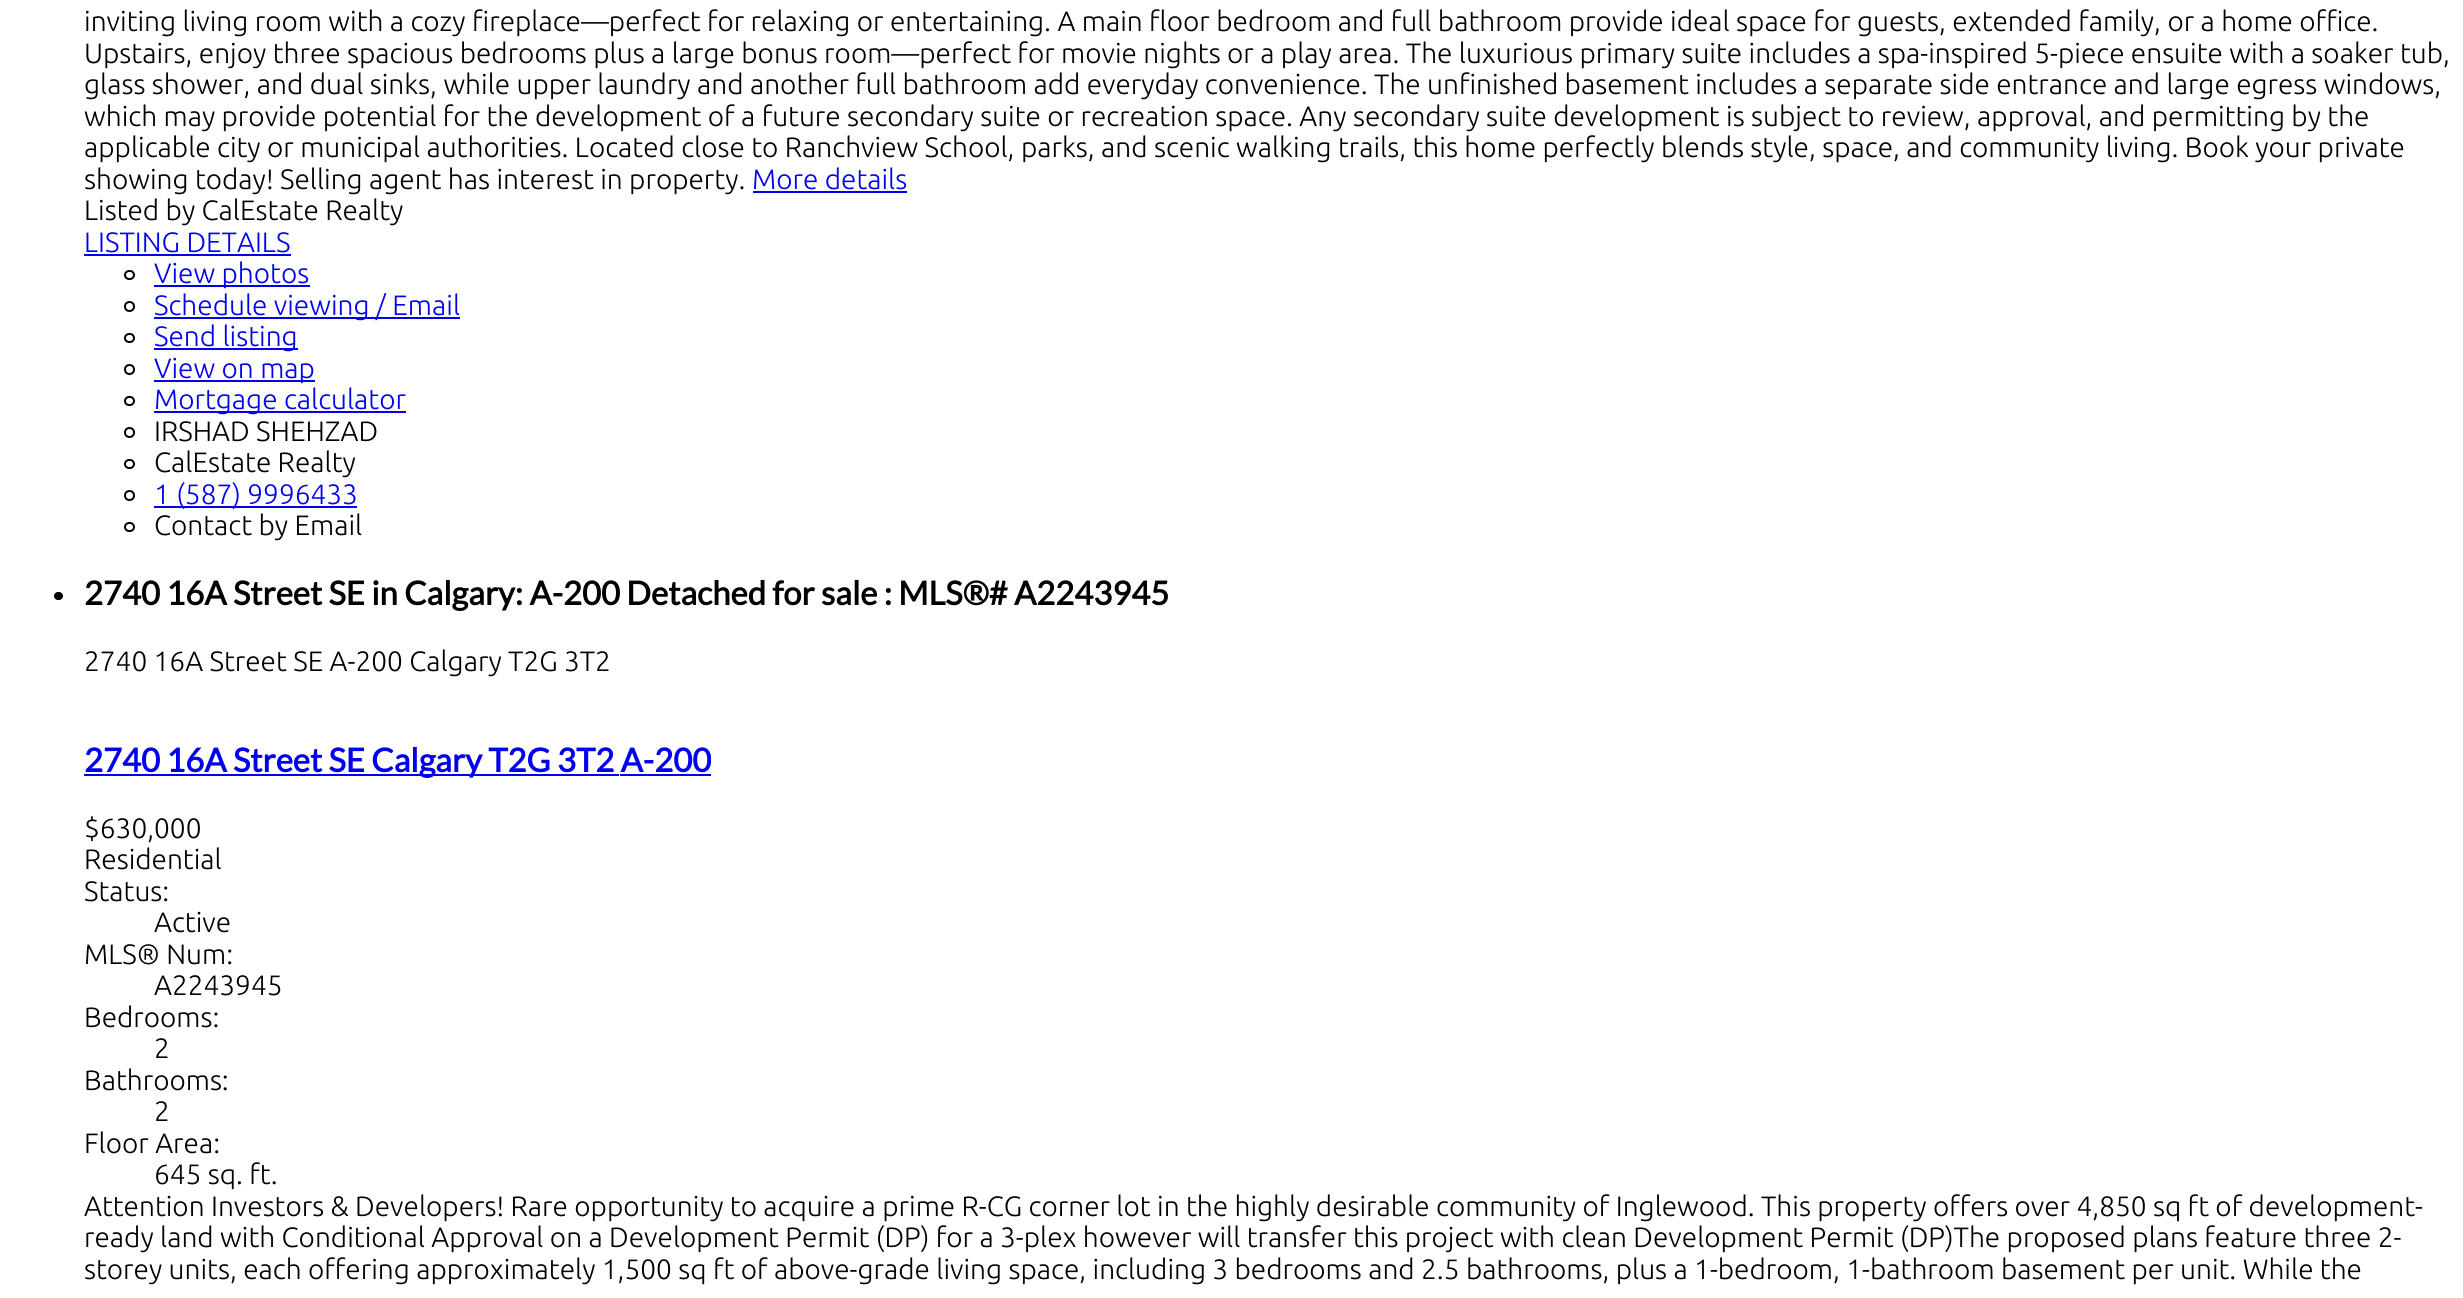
#include <cairo/cairo.h>
#include <math.h>
#include <stddef.h>

typedef struct { double x, y; const char *s; } line_t;
static cairo_t *cr;

static void rgb(unsigned color)
{
	cairo_set_source_rgb(cr, (color >> 16) / 255.0, (color >> 8 & 255) / 255.0, (color & 255) / 255.0);
}

static void rrect(double x, double y, double w, double h, double r)
{
	cairo_new_sub_path(cr);
	cairo_arc(cr, x + w - r, y + h - r, r, 0, M_PI / 2);
	cairo_arc(cr, x + r, y + h - r, r, M_PI / 2, M_PI);
	cairo_arc(cr, x + r, y + r, r, M_PI, 1.5 * M_PI);
	cairo_arc(cr, x + w - r, y + r, r, 1.5 * M_PI, 2 * M_PI);
	cairo_close_path(cr);
}

int main(void) {
	cairo_surface_t *surface = cairo_image_surface_create(CAIRO_FORMAT_RGB24, 2463, 1298);
	cr = cairo_create(surface);
	cairo_font_options_t *options = cairo_font_options_create();
	cairo_font_options_set_hint_metrics(options, CAIRO_HINT_METRICS_OFF);
	cairo_font_options_set_hint_style(options, CAIRO_HINT_STYLE_NONE);
	cairo_set_font_options(cr, options);
	cairo_set_miter_limit(cr, 4);
	rgb(0xffffff);
	cairo_paint(cr);
	rgb(0x0000ee);
	cairo_rectangle(cr, 753, 191, 154, 2);
	cairo_fill(cr);
	cairo_rectangle(cr, 84, 254, 207, 2);
	cairo_fill(cr);
	rrect(125, 271, 9, 8, 4);
	rgb(0x000000);
	cairo_stroke(cr);
	rgb(0x0000ee);
	cairo_rectangle(cr, 154, 285, 156, 2);
	cairo_fill(cr);
	cairo_arc(cr, 129.5, 306.5, 4.5, 0, 2 * M_PI);
	rgb(0x000000);
	cairo_stroke(cr);
	rgb(0x0000ee);
	cairo_rectangle(cr, 154, 317, 306, 2);
	cairo_fill(cr);
	rrect(125, 334, 9, 8, 4);
	rgb(0x000000);
	cairo_stroke(cr);
	rgb(0x0000ee);
	cairo_rectangle(cr, 154, 348, 144, 2);
	cairo_fill(cr);
	cairo_arc(cr, 129.5, 369.5, 4.5, 0, 2 * M_PI);
	rgb(0x000000);
	cairo_stroke(cr);
	rgb(0x0000ee);
	cairo_rectangle(cr, 154, 380, 161, 2);
	cairo_fill(cr);
	rrect(125, 397, 9, 8, 4);
	rgb(0x000000);
	cairo_stroke(cr);
	rgb(0x0000ee);
	cairo_rectangle(cr, 154, 411, 252, 2);
	cairo_fill(cr);
	cairo_arc(cr, 129.5, 432.5, 4.5, 0, 2 * M_PI);
	rgb(0x000000);
	cairo_stroke(cr);
	rrect(125, 460, 9, 8, 4);
	cairo_stroke(cr);
	cairo_arc(cr, 129.5, 495.5, 4.5, 0, 2 * M_PI);
	cairo_stroke(cr);
	rgb(0x0000ee);
	cairo_rectangle(cr, 154, 506, 203, 2);
	cairo_fill(cr);
	rrect(125, 523, 9, 8, 4);
	rgb(0x000000);
	cairo_stroke(cr);
	rrect(54, 592, 9, 8, 4);
	cairo_fill(cr);
	rgb(0x0000ee);
	cairo_rectangle(cr, 84, 774, 535, 2);
	cairo_fill(cr);
	cairo_rectangle(cr, 620, 774, 91, 2);
	cairo_fill(cr);
	cairo_select_font_face(cr, "Ubuntu Light", CAIRO_FONT_SLANT_NORMAL, CAIRO_FONT_WEIGHT_NORMAL);
	cairo_set_font_size(cr, 28);
	rgb(0x000000);
	{
		static const line_t items[] = {
			{84, 31, "inviting living room with a cozy fireplace—perfect for relaxing or entertaining. A main floor bedroom and full bathroom provide ideal space for guests, extended family, or a home office."},
			{84, 63, "Upstairs, enjoy three spacious bedrooms plus a large bonus room—perfect for movie nights or a play area. The luxurious primary suite includes a spa-inspired 5-piece ensuite with a soaker tub,"},
			{84, 94, "glass shower, and dual sinks, while upper laundry and another full bathroom add everyday convenience. The unfinished basement includes a separate side entrance and large egress windows,"},
			{84, 126, "which may provide potential for the development of a future secondary suite or recreation space. Any secondary suite development is subject to review, approval, and permitting by the"},
			{84, 157, "applicable city or municipal authorities. Located close to Ranchview School, parks, and scenic walking trails, this home perfectly blends style, space, and community living. Book your private"},
			{84, 189, "showing today! Selling agent has interest in property."},
		};
		for (size_t i = 0; i < sizeof items / sizeof *items; i++) {
			cairo_move_to(cr, items[i].x, items[i].y);
			cairo_show_text(cr, items[i].s);
		}
	}
	rgb(0x0000ee);
	cairo_move_to(cr, 752, 189);
	cairo_show_text(cr, "More details");
	rgb(0x000000);
	cairo_move_to(cr, 84, 220);
	cairo_show_text(cr, "Listed by CalEstate Realty");
	rgb(0x0000ee);
	{
		static const line_t items[] = {
			{84, 252, "LISTING DETAILS"},
			{154, 283, "View photos"},
			{154, 315, "Schedule viewing / Email"},
			{154, 346, "Send listing"},
			{154, 378, "View on map"},
			{154, 409, "Mortgage calculator"},
		};
		for (size_t i = 0; i < sizeof items / sizeof *items; i++) {
			cairo_move_to(cr, items[i].x, items[i].y);
			cairo_show_text(cr, items[i].s);
		}
	}
	rgb(0x000000);
	cairo_move_to(cr, 154, 441);
	cairo_show_text(cr, "IRSHAD SHEHZAD");
	cairo_move_to(cr, 154, 472);
	cairo_show_text(cr, "CalEstate Realty");
	rgb(0x0000ee);
	cairo_move_to(cr, 154, 504);
	cairo_show_text(cr, "1 (587) 9996433");
	rgb(0x000000);
	cairo_move_to(cr, 154, 535);
	cairo_show_text(cr, "Contact by Email");
	cairo_select_font_face(cr, "Lato", CAIRO_FONT_SLANT_NORMAL, CAIRO_FONT_WEIGHT_BOLD);
	cairo_set_font_size(cr, 32.75);
	cairo_move_to(cr, 84, 605);
	cairo_show_text(cr, "2740 16A Street SE in Calgary: A-200 Detached for sale : MLS®# A2243945");
	cairo_select_font_face(cr, "Ubuntu Light", CAIRO_FONT_SLANT_NORMAL, CAIRO_FONT_WEIGHT_NORMAL);
	cairo_set_font_size(cr, 28);
	cairo_move_to(cr, 84, 671);
	cairo_show_text(cr, "2740 16A Street SE A-200 Calgary T2G 3T2");
	cairo_select_font_face(cr, "Lato", CAIRO_FONT_SLANT_NORMAL, CAIRO_FONT_WEIGHT_BOLD);
	cairo_set_font_size(cr, 32.75);
	rgb(0x0000ee);
	cairo_move_to(cr, 84, 772);
	cairo_show_text(cr, "2740 16A Street SE Calgary T2G 3T2 A-200");
	cairo_select_font_face(cr, "Ubuntu Light", CAIRO_FONT_SLANT_NORMAL, CAIRO_FONT_WEIGHT_NORMAL);
	cairo_set_font_size(cr, 28);
	rgb(0x000000);
	{
		static const line_t items[] = {
			{84, 838, "$630,000"},
			{84, 869, "Residential"},
			{84, 901, "Status:"},
			{154, 932, "Active"},
			{84, 964, "MLS® Num:"},
			{154, 995, "A2243945"},
			{84, 1027, "Bedrooms:"},
			{154, 1058, "2"},
			{84, 1090, "Bathrooms:"},
			{154, 1121, "2"},
			{84, 1153, "Floor Area:"},
			{154, 1184, "645 sq. ft."},
			{84, 1216, "Attention Investors & Developers! Rare opportunity to acquire a prime R-CG corner lot in the highly desirable community of Inglewood. This property offers over 4,850 sq ft of development-"},
			{84, 1247, "ready land with Conditional Approval on a Development Permit (DP) for a 3-plex however will transfer this project with clean Development Permit (DP)The proposed plans feature three 2-"},
			{84, 1279, "storey units, each offering approximately 1,500 sq ft of above-grade living space, including 3 bedrooms and 2.5 bathrooms, plus a 1-bedroom, 1-bathroom basement per unit. While the"},
		};
		for (size_t i = 0; i < sizeof items / sizeof *items; i++) {
			cairo_move_to(cr, items[i].x, items[i].y);
			cairo_show_text(cr, items[i].s);
		}
	}
	cairo_surface_write_to_png(surface, "page.png");
	cairo_font_options_destroy(options);
	cairo_destroy(cr);
	cairo_surface_destroy(surface);
	return 0;
}
